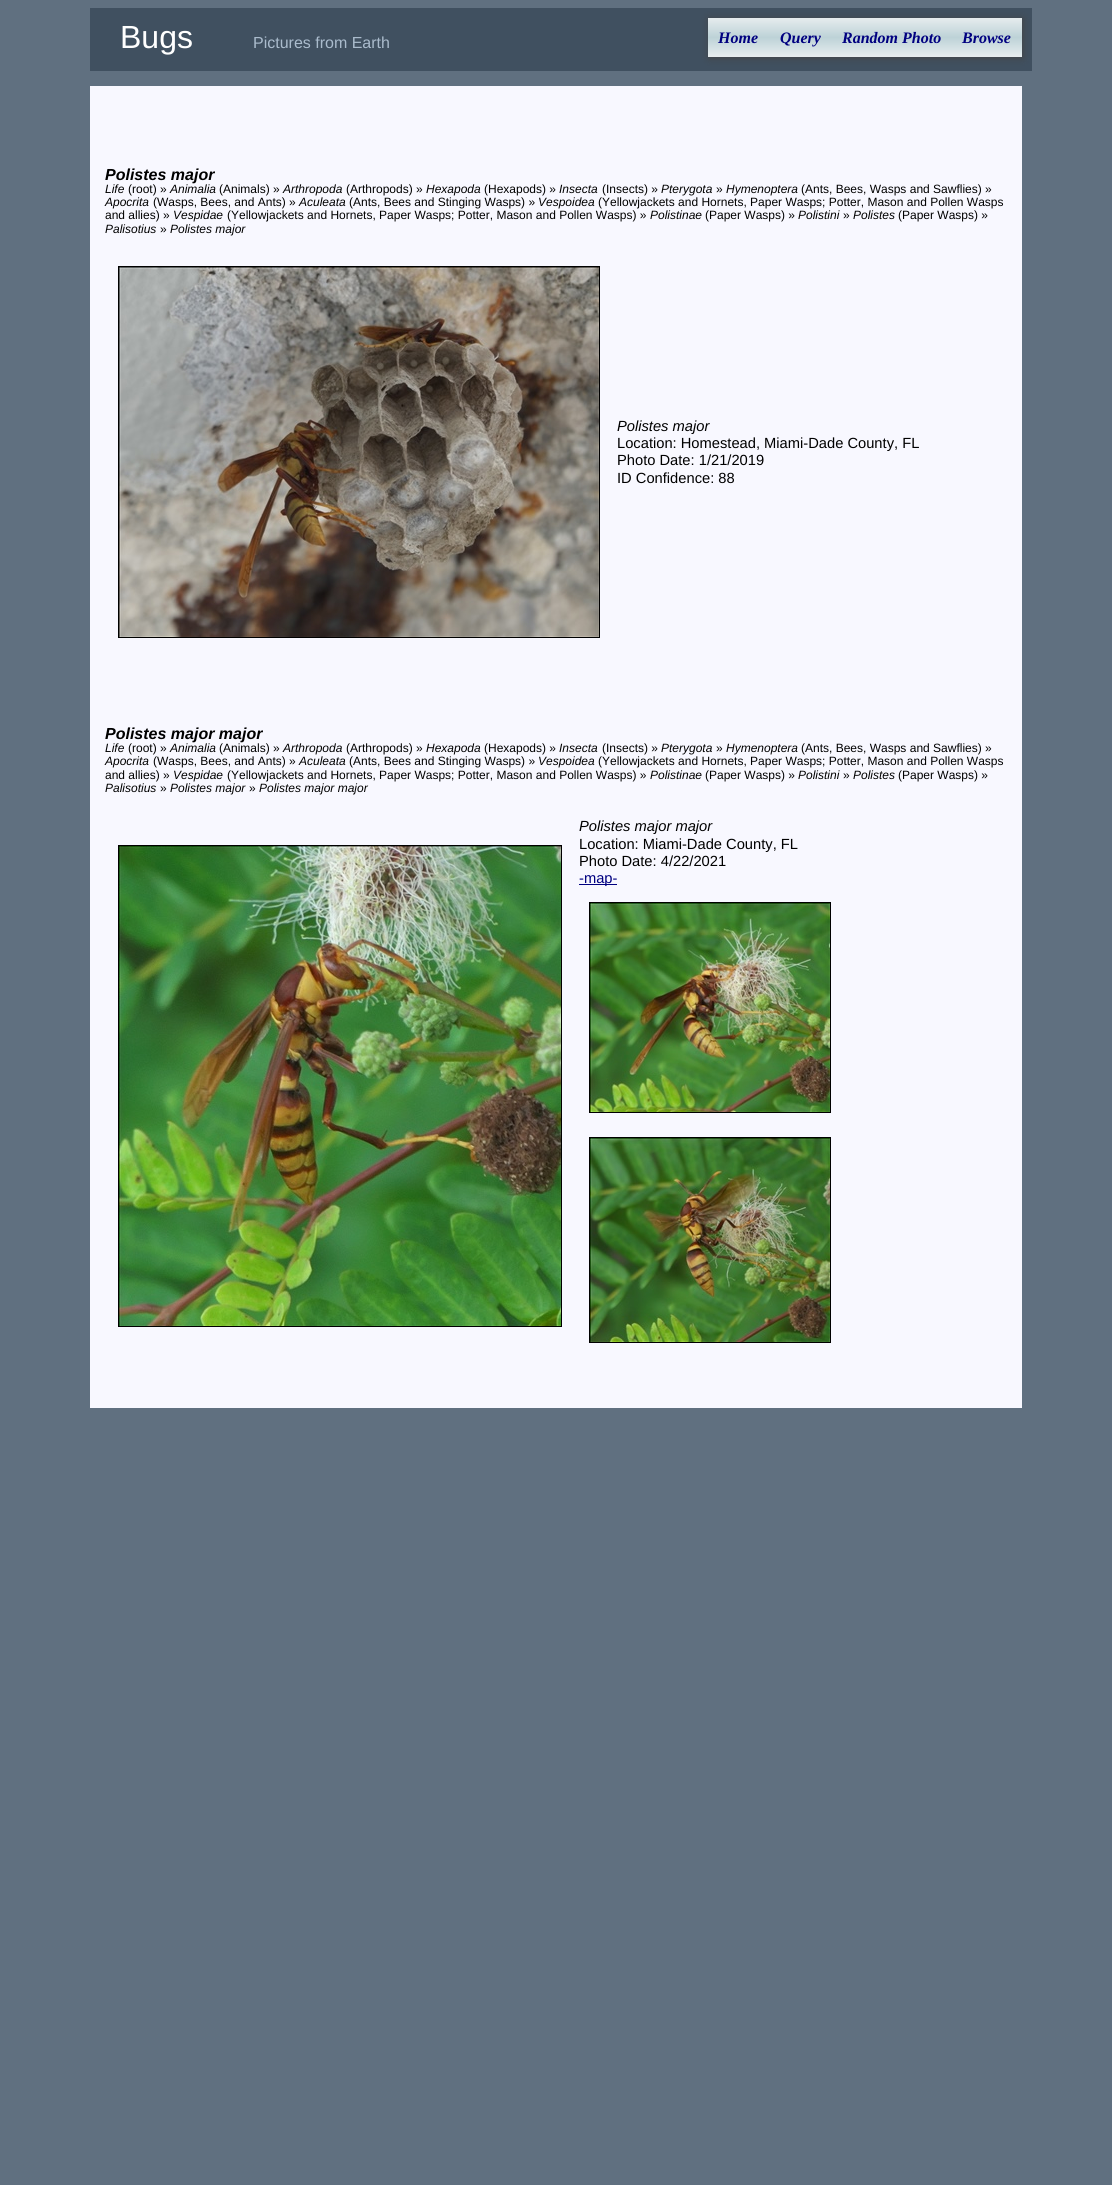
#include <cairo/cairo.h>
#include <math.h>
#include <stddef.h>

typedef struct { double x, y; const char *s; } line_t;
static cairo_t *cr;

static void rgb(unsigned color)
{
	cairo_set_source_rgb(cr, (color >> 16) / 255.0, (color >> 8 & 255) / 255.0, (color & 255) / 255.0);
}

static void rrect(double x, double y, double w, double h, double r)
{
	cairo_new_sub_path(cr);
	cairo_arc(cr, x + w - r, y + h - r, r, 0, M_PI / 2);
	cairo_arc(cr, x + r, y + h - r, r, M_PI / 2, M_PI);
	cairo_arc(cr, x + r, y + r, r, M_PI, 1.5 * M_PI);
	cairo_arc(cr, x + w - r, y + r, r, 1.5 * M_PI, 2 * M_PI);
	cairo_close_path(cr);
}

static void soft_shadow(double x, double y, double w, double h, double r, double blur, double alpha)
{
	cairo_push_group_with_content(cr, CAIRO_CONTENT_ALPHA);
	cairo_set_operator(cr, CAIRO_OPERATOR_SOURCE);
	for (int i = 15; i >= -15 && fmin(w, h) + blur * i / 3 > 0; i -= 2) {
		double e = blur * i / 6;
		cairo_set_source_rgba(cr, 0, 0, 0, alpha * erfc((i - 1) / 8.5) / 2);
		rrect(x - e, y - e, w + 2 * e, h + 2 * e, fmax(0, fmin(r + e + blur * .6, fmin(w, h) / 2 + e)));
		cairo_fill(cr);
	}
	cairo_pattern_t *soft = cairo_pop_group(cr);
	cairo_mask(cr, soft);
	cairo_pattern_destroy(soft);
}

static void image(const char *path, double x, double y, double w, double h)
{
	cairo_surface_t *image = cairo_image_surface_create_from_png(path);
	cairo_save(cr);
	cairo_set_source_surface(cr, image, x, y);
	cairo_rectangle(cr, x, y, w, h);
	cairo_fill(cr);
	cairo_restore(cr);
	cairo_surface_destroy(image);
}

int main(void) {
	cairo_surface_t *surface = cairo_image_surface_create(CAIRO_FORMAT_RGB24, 1112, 2185);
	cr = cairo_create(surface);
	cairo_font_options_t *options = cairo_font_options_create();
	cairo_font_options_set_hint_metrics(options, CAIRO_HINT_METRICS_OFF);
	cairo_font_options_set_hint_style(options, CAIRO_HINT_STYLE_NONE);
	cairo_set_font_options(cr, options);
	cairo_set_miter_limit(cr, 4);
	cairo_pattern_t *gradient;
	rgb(0x607080);
	cairo_paint(cr);
	rgb(0x405060);
	cairo_rectangle(cr, 90, 8, 942, 63);
	cairo_fill(cr);
	rgb(0x444444);
	soft_shadow(709, 19, 314, 39, 0, 4, 1);
	gradient = cairo_pattern_create_linear(865, 18, 865, 57);
	cairo_pattern_add_color_stop_rgba(gradient, 0, 0.902, 0.925, 0.933, 1);
	cairo_pattern_add_color_stop_rgba(gradient, 0.5, 0.741, 0.824, 0.843, 1);
	cairo_pattern_add_color_stop_rgba(gradient, 1, 0.91, 0.933, 0.941, 1);
	cairo_set_source(cr, gradient);
	cairo_pattern_destroy(gradient);
	cairo_rectangle(cr, 708, 18, 314, 39);
	cairo_fill(cr);
	rgb(0xf8f8ff);
	cairo_rectangle(cr, 90, 86, 932, 1322);
	cairo_fill(cr);
	cairo_rectangle(cr, 118.5, 266.5, 481, 371);
	rgb(0x000000);
	cairo_set_line_width(cr, 1);
	cairo_stroke(cr);
	image("img/1.png", 119, 267, 480, 370);
	cairo_rectangle(cr, 118.5, 845.5, 443, 481);
	cairo_stroke(cr);
	image("img/2.png", 119, 846, 442, 480);
	rgb(0x000080);
	cairo_rectangle(cr, 579, 884, 38, 1);
	cairo_fill(cr);
	cairo_rectangle(cr, 589.5, 902.5, 241, 210);
	rgb(0x000000);
	cairo_stroke(cr);
	image("img/3.png", 590, 903, 240, 209);
	cairo_rectangle(cr, 589.5, 1137.5, 241, 205);
	cairo_stroke(cr);
	image("img/4.png", 590, 1138, 240, 204);
	cairo_select_font_face(cr, "Liberation Sans", CAIRO_FONT_SLANT_NORMAL, CAIRO_FONT_WEIGHT_NORMAL);
	cairo_set_font_size(cr, 32);
	rgb(0xffffff);
	cairo_move_to(cr, 120, 48);
	cairo_show_text(cr, "Bugs");
	cairo_set_font_size(cr, 16);
	rgb(0xaabbcc);
	cairo_move_to(cr, 253, 48);
	cairo_show_text(cr, "Pictures from Earth");
	cairo_select_font_face(cr, "Liberation Serif", CAIRO_FONT_SLANT_ITALIC, CAIRO_FONT_WEIGHT_BOLD);
	rgb(0x000080);
	{
		static const line_t items[] = {
			{718, 43, "Home"},
			{780, 43, "Query"},
			{842, 43, "Random Photo"},
			{962, 43, "Browse"},
		};
		for (size_t i = 0; i < sizeof items / sizeof *items; i++) {
			cairo_move_to(cr, items[i].x, items[i].y);
			cairo_show_text(cr, items[i].s);
		}
	}
	cairo_select_font_face(cr, "Liberation Sans", CAIRO_FONT_SLANT_ITALIC, CAIRO_FONT_WEIGHT_BOLD);
	rgb(0x000000);
	cairo_move_to(cr, 105, 180);
	cairo_show_text(cr, "Polistes major");
	cairo_select_font_face(cr, "Liberation Sans", CAIRO_FONT_SLANT_ITALIC, CAIRO_FONT_WEIGHT_NORMAL);
	cairo_set_font_size(cr, 12);
	cairo_move_to(cr, 105, 193);
	cairo_show_text(cr, "Life");
	cairo_select_font_face(cr, "Liberation Sans", CAIRO_FONT_SLANT_NORMAL, CAIRO_FONT_WEIGHT_NORMAL);
	cairo_move_to(cr, 128, 193);
	cairo_show_text(cr, "(root) »");
	cairo_select_font_face(cr, "Liberation Sans", CAIRO_FONT_SLANT_ITALIC, CAIRO_FONT_WEIGHT_NORMAL);
	cairo_move_to(cr, 170, 193);
	cairo_show_text(cr, "Animalia");
	cairo_select_font_face(cr, "Liberation Sans", CAIRO_FONT_SLANT_NORMAL, CAIRO_FONT_WEIGHT_NORMAL);
	cairo_move_to(cr, 219, 193);
	cairo_show_text(cr, "(Animals) »");
	cairo_select_font_face(cr, "Liberation Sans", CAIRO_FONT_SLANT_ITALIC, CAIRO_FONT_WEIGHT_NORMAL);
	cairo_move_to(cr, 283, 193);
	cairo_show_text(cr, "Arthropoda");
	cairo_select_font_face(cr, "Liberation Sans", CAIRO_FONT_SLANT_NORMAL, CAIRO_FONT_WEIGHT_NORMAL);
	cairo_move_to(cr, 346, 193);
	cairo_show_text(cr, "(Arthropods) »");
	cairo_select_font_face(cr, "Liberation Sans", CAIRO_FONT_SLANT_ITALIC, CAIRO_FONT_WEIGHT_NORMAL);
	cairo_move_to(cr, 426, 193);
	cairo_show_text(cr, "Hexapoda");
	cairo_select_font_face(cr, "Liberation Sans", CAIRO_FONT_SLANT_NORMAL, CAIRO_FONT_WEIGHT_NORMAL);
	cairo_move_to(cr, 484, 193);
	cairo_show_text(cr, "(Hexapods) »");
	cairo_select_font_face(cr, "Liberation Sans", CAIRO_FONT_SLANT_ITALIC, CAIRO_FONT_WEIGHT_NORMAL);
	cairo_move_to(cr, 559, 193);
	cairo_show_text(cr, "Insecta");
	cairo_select_font_face(cr, "Liberation Sans", CAIRO_FONT_SLANT_NORMAL, CAIRO_FONT_WEIGHT_NORMAL);
	cairo_move_to(cr, 602, 193);
	cairo_show_text(cr, "(Insects) »");
	cairo_select_font_face(cr, "Liberation Sans", CAIRO_FONT_SLANT_ITALIC, CAIRO_FONT_WEIGHT_NORMAL);
	cairo_move_to(cr, 661, 193);
	cairo_show_text(cr, "Pterygota");
	cairo_select_font_face(cr, "Liberation Sans", CAIRO_FONT_SLANT_NORMAL, CAIRO_FONT_WEIGHT_NORMAL);
	cairo_move_to(cr, 716, 193);
	cairo_show_text(cr, "»");
	cairo_select_font_face(cr, "Liberation Sans", CAIRO_FONT_SLANT_ITALIC, CAIRO_FONT_WEIGHT_NORMAL);
	cairo_move_to(cr, 726, 193);
	cairo_show_text(cr, "Hymenoptera");
	cairo_select_font_face(cr, "Liberation Sans", CAIRO_FONT_SLANT_NORMAL, CAIRO_FONT_WEIGHT_NORMAL);
	cairo_move_to(cr, 801, 193);
	cairo_show_text(cr, "(Ants, Bees, Wasps and Sawflies) »");
	cairo_select_font_face(cr, "Liberation Sans", CAIRO_FONT_SLANT_ITALIC, CAIRO_FONT_WEIGHT_NORMAL);
	cairo_move_to(cr, 105, 206);
	cairo_show_text(cr, "Apocrita");
	cairo_select_font_face(cr, "Liberation Sans", CAIRO_FONT_SLANT_NORMAL, CAIRO_FONT_WEIGHT_NORMAL);
	cairo_move_to(cr, 153, 206);
	cairo_show_text(cr, "(Wasps, Bees, and Ants) »");
	cairo_select_font_face(cr, "Liberation Sans", CAIRO_FONT_SLANT_ITALIC, CAIRO_FONT_WEIGHT_NORMAL);
	cairo_move_to(cr, 299, 206);
	cairo_show_text(cr, "Aculeata");
	cairo_select_font_face(cr, "Liberation Sans", CAIRO_FONT_SLANT_NORMAL, CAIRO_FONT_WEIGHT_NORMAL);
	cairo_move_to(cr, 349, 206);
	cairo_show_text(cr, "(Ants, Bees and Stinging Wasps) »");
	cairo_select_font_face(cr, "Liberation Sans", CAIRO_FONT_SLANT_ITALIC, CAIRO_FONT_WEIGHT_NORMAL);
	cairo_move_to(cr, 538, 206);
	cairo_show_text(cr, "Vespoidea");
	cairo_select_font_face(cr, "Liberation Sans", CAIRO_FONT_SLANT_NORMAL, CAIRO_FONT_WEIGHT_NORMAL);
	cairo_move_to(cr, 598, 206);
	cairo_show_text(cr, "(Yellowjackets and Hornets, Paper Wasps; Potter, Mason and Pollen Wasps");
	cairo_move_to(cr, 105, 219);
	cairo_show_text(cr, "and allies) »");
	cairo_select_font_face(cr, "Liberation Sans", CAIRO_FONT_SLANT_ITALIC, CAIRO_FONT_WEIGHT_NORMAL);
	cairo_move_to(cr, 173, 219);
	cairo_show_text(cr, "Vespidae");
	cairo_select_font_face(cr, "Liberation Sans", CAIRO_FONT_SLANT_NORMAL, CAIRO_FONT_WEIGHT_NORMAL);
	cairo_move_to(cr, 227, 219);
	cairo_show_text(cr, "(Yellowjackets and Hornets, Paper Wasps; Potter, Mason and Pollen Wasps) »");
	cairo_select_font_face(cr, "Liberation Sans", CAIRO_FONT_SLANT_ITALIC, CAIRO_FONT_WEIGHT_NORMAL);
	cairo_move_to(cr, 650, 219);
	cairo_show_text(cr, "Polistinae");
	cairo_select_font_face(cr, "Liberation Sans", CAIRO_FONT_SLANT_NORMAL, CAIRO_FONT_WEIGHT_NORMAL);
	cairo_move_to(cr, 705, 219);
	cairo_show_text(cr, "(Paper Wasps) »");
	cairo_select_font_face(cr, "Liberation Sans", CAIRO_FONT_SLANT_ITALIC, CAIRO_FONT_WEIGHT_NORMAL);
	cairo_move_to(cr, 798, 219);
	cairo_show_text(cr, "Polistini");
	cairo_select_font_face(cr, "Liberation Sans", CAIRO_FONT_SLANT_NORMAL, CAIRO_FONT_WEIGHT_NORMAL);
	cairo_move_to(cr, 843, 219);
	cairo_show_text(cr, "»");
	cairo_select_font_face(cr, "Liberation Sans", CAIRO_FONT_SLANT_ITALIC, CAIRO_FONT_WEIGHT_NORMAL);
	cairo_move_to(cr, 853, 219);
	cairo_show_text(cr, "Polistes");
	cairo_select_font_face(cr, "Liberation Sans", CAIRO_FONT_SLANT_NORMAL, CAIRO_FONT_WEIGHT_NORMAL);
	cairo_move_to(cr, 898, 219);
	cairo_show_text(cr, "(Paper Wasps) »");
	cairo_select_font_face(cr, "Liberation Sans", CAIRO_FONT_SLANT_ITALIC, CAIRO_FONT_WEIGHT_NORMAL);
	cairo_move_to(cr, 105, 233);
	cairo_show_text(cr, "Palisotius");
	cairo_select_font_face(cr, "Liberation Sans", CAIRO_FONT_SLANT_NORMAL, CAIRO_FONT_WEIGHT_NORMAL);
	cairo_move_to(cr, 160, 233);
	cairo_show_text(cr, "»");
	cairo_select_font_face(cr, "Liberation Sans", CAIRO_FONT_SLANT_ITALIC, CAIRO_FONT_WEIGHT_NORMAL);
	cairo_move_to(cr, 170, 233);
	cairo_show_text(cr, "Polistes major");
	cairo_set_font_size(cr, 14.7);
	cairo_move_to(cr, 617, 431);
	cairo_show_text(cr, "Polistes major");
	cairo_select_font_face(cr, "Liberation Sans", CAIRO_FONT_SLANT_NORMAL, CAIRO_FONT_WEIGHT_NORMAL);
	{
		static const line_t items[] = {
			{617, 448, "Location: Homestead, Miami-Dade County, FL"},
			{617, 465, "Photo Date: 1/21/2019"},
			{617, 483, "ID Confidence: 88"},
		};
		for (size_t i = 0; i < sizeof items / sizeof *items; i++) {
			cairo_move_to(cr, items[i].x, items[i].y);
			cairo_show_text(cr, items[i].s);
		}
	}
	cairo_select_font_face(cr, "Liberation Sans", CAIRO_FONT_SLANT_ITALIC, CAIRO_FONT_WEIGHT_BOLD);
	cairo_set_font_size(cr, 16);
	cairo_move_to(cr, 105, 739);
	cairo_show_text(cr, "Polistes major major");
	cairo_select_font_face(cr, "Liberation Sans", CAIRO_FONT_SLANT_ITALIC, CAIRO_FONT_WEIGHT_NORMAL);
	cairo_set_font_size(cr, 12);
	cairo_move_to(cr, 105, 752);
	cairo_show_text(cr, "Life");
	cairo_select_font_face(cr, "Liberation Sans", CAIRO_FONT_SLANT_NORMAL, CAIRO_FONT_WEIGHT_NORMAL);
	cairo_move_to(cr, 128, 752);
	cairo_show_text(cr, "(root) »");
	cairo_select_font_face(cr, "Liberation Sans", CAIRO_FONT_SLANT_ITALIC, CAIRO_FONT_WEIGHT_NORMAL);
	cairo_move_to(cr, 170, 752);
	cairo_show_text(cr, "Animalia");
	cairo_select_font_face(cr, "Liberation Sans", CAIRO_FONT_SLANT_NORMAL, CAIRO_FONT_WEIGHT_NORMAL);
	cairo_move_to(cr, 219, 752);
	cairo_show_text(cr, "(Animals) »");
	cairo_select_font_face(cr, "Liberation Sans", CAIRO_FONT_SLANT_ITALIC, CAIRO_FONT_WEIGHT_NORMAL);
	cairo_move_to(cr, 283, 752);
	cairo_show_text(cr, "Arthropoda");
	cairo_select_font_face(cr, "Liberation Sans", CAIRO_FONT_SLANT_NORMAL, CAIRO_FONT_WEIGHT_NORMAL);
	cairo_move_to(cr, 346, 752);
	cairo_show_text(cr, "(Arthropods) »");
	cairo_select_font_face(cr, "Liberation Sans", CAIRO_FONT_SLANT_ITALIC, CAIRO_FONT_WEIGHT_NORMAL);
	cairo_move_to(cr, 426, 752);
	cairo_show_text(cr, "Hexapoda");
	cairo_select_font_face(cr, "Liberation Sans", CAIRO_FONT_SLANT_NORMAL, CAIRO_FONT_WEIGHT_NORMAL);
	cairo_move_to(cr, 484, 752);
	cairo_show_text(cr, "(Hexapods) »");
	cairo_select_font_face(cr, "Liberation Sans", CAIRO_FONT_SLANT_ITALIC, CAIRO_FONT_WEIGHT_NORMAL);
	cairo_move_to(cr, 559, 752);
	cairo_show_text(cr, "Insecta");
	cairo_select_font_face(cr, "Liberation Sans", CAIRO_FONT_SLANT_NORMAL, CAIRO_FONT_WEIGHT_NORMAL);
	cairo_move_to(cr, 602, 752);
	cairo_show_text(cr, "(Insects) »");
	cairo_select_font_face(cr, "Liberation Sans", CAIRO_FONT_SLANT_ITALIC, CAIRO_FONT_WEIGHT_NORMAL);
	cairo_move_to(cr, 661, 752);
	cairo_show_text(cr, "Pterygota");
	cairo_select_font_face(cr, "Liberation Sans", CAIRO_FONT_SLANT_NORMAL, CAIRO_FONT_WEIGHT_NORMAL);
	cairo_move_to(cr, 716, 752);
	cairo_show_text(cr, "»");
	cairo_select_font_face(cr, "Liberation Sans", CAIRO_FONT_SLANT_ITALIC, CAIRO_FONT_WEIGHT_NORMAL);
	cairo_move_to(cr, 726, 752);
	cairo_show_text(cr, "Hymenoptera");
	cairo_select_font_face(cr, "Liberation Sans", CAIRO_FONT_SLANT_NORMAL, CAIRO_FONT_WEIGHT_NORMAL);
	cairo_move_to(cr, 801, 752);
	cairo_show_text(cr, "(Ants, Bees, Wasps and Sawflies) »");
	cairo_select_font_face(cr, "Liberation Sans", CAIRO_FONT_SLANT_ITALIC, CAIRO_FONT_WEIGHT_NORMAL);
	cairo_move_to(cr, 105, 765);
	cairo_show_text(cr, "Apocrita");
	cairo_select_font_face(cr, "Liberation Sans", CAIRO_FONT_SLANT_NORMAL, CAIRO_FONT_WEIGHT_NORMAL);
	cairo_move_to(cr, 153, 765);
	cairo_show_text(cr, "(Wasps, Bees, and Ants) »");
	cairo_select_font_face(cr, "Liberation Sans", CAIRO_FONT_SLANT_ITALIC, CAIRO_FONT_WEIGHT_NORMAL);
	cairo_move_to(cr, 299, 765);
	cairo_show_text(cr, "Aculeata");
	cairo_select_font_face(cr, "Liberation Sans", CAIRO_FONT_SLANT_NORMAL, CAIRO_FONT_WEIGHT_NORMAL);
	cairo_move_to(cr, 349, 765);
	cairo_show_text(cr, "(Ants, Bees and Stinging Wasps) »");
	cairo_select_font_face(cr, "Liberation Sans", CAIRO_FONT_SLANT_ITALIC, CAIRO_FONT_WEIGHT_NORMAL);
	cairo_move_to(cr, 538, 765);
	cairo_show_text(cr, "Vespoidea");
	cairo_select_font_face(cr, "Liberation Sans", CAIRO_FONT_SLANT_NORMAL, CAIRO_FONT_WEIGHT_NORMAL);
	cairo_move_to(cr, 598, 765);
	cairo_show_text(cr, "(Yellowjackets and Hornets, Paper Wasps; Potter, Mason and Pollen Wasps");
	cairo_move_to(cr, 105, 779);
	cairo_show_text(cr, "and allies) »");
	cairo_select_font_face(cr, "Liberation Sans", CAIRO_FONT_SLANT_ITALIC, CAIRO_FONT_WEIGHT_NORMAL);
	cairo_move_to(cr, 173, 779);
	cairo_show_text(cr, "Vespidae");
	cairo_select_font_face(cr, "Liberation Sans", CAIRO_FONT_SLANT_NORMAL, CAIRO_FONT_WEIGHT_NORMAL);
	cairo_move_to(cr, 227, 779);
	cairo_show_text(cr, "(Yellowjackets and Hornets, Paper Wasps; Potter, Mason and Pollen Wasps) »");
	cairo_select_font_face(cr, "Liberation Sans", CAIRO_FONT_SLANT_ITALIC, CAIRO_FONT_WEIGHT_NORMAL);
	cairo_move_to(cr, 650, 779);
	cairo_show_text(cr, "Polistinae");
	cairo_select_font_face(cr, "Liberation Sans", CAIRO_FONT_SLANT_NORMAL, CAIRO_FONT_WEIGHT_NORMAL);
	cairo_move_to(cr, 705, 779);
	cairo_show_text(cr, "(Paper Wasps) »");
	cairo_select_font_face(cr, "Liberation Sans", CAIRO_FONT_SLANT_ITALIC, CAIRO_FONT_WEIGHT_NORMAL);
	cairo_move_to(cr, 798, 779);
	cairo_show_text(cr, "Polistini");
	cairo_select_font_face(cr, "Liberation Sans", CAIRO_FONT_SLANT_NORMAL, CAIRO_FONT_WEIGHT_NORMAL);
	cairo_move_to(cr, 843, 779);
	cairo_show_text(cr, "»");
	cairo_select_font_face(cr, "Liberation Sans", CAIRO_FONT_SLANT_ITALIC, CAIRO_FONT_WEIGHT_NORMAL);
	cairo_move_to(cr, 853, 779);
	cairo_show_text(cr, "Polistes");
	cairo_select_font_face(cr, "Liberation Sans", CAIRO_FONT_SLANT_NORMAL, CAIRO_FONT_WEIGHT_NORMAL);
	cairo_move_to(cr, 898, 779);
	cairo_show_text(cr, "(Paper Wasps) »");
	cairo_select_font_face(cr, "Liberation Sans", CAIRO_FONT_SLANT_ITALIC, CAIRO_FONT_WEIGHT_NORMAL);
	cairo_move_to(cr, 105, 792);
	cairo_show_text(cr, "Palisotius");
	cairo_select_font_face(cr, "Liberation Sans", CAIRO_FONT_SLANT_NORMAL, CAIRO_FONT_WEIGHT_NORMAL);
	cairo_move_to(cr, 160, 792);
	cairo_show_text(cr, "»");
	cairo_select_font_face(cr, "Liberation Sans", CAIRO_FONT_SLANT_ITALIC, CAIRO_FONT_WEIGHT_NORMAL);
	cairo_move_to(cr, 170, 792);
	cairo_show_text(cr, "Polistes major");
	cairo_select_font_face(cr, "Liberation Sans", CAIRO_FONT_SLANT_NORMAL, CAIRO_FONT_WEIGHT_NORMAL);
	cairo_move_to(cr, 249, 792);
	cairo_show_text(cr, "»");
	cairo_select_font_face(cr, "Liberation Sans", CAIRO_FONT_SLANT_ITALIC, CAIRO_FONT_WEIGHT_NORMAL);
	cairo_move_to(cr, 259, 792);
	cairo_show_text(cr, "Polistes major major");
	cairo_set_font_size(cr, 14.7);
	cairo_move_to(cr, 579, 831);
	cairo_show_text(cr, "Polistes major major");
	cairo_select_font_face(cr, "Liberation Sans", CAIRO_FONT_SLANT_NORMAL, CAIRO_FONT_WEIGHT_NORMAL);
	cairo_move_to(cr, 579, 849);
	cairo_show_text(cr, "Location: Miami-Dade County, FL");
	cairo_move_to(cr, 579, 866);
	cairo_show_text(cr, "Photo Date: 4/22/2021");
	rgb(0x000080);
	cairo_move_to(cr, 579, 883);
	cairo_show_text(cr, "-map-");
	cairo_surface_write_to_png(surface, "page.png");
	cairo_font_options_destroy(options);
	cairo_destroy(cr);
	cairo_surface_destroy(surface);
	return 0;
}
